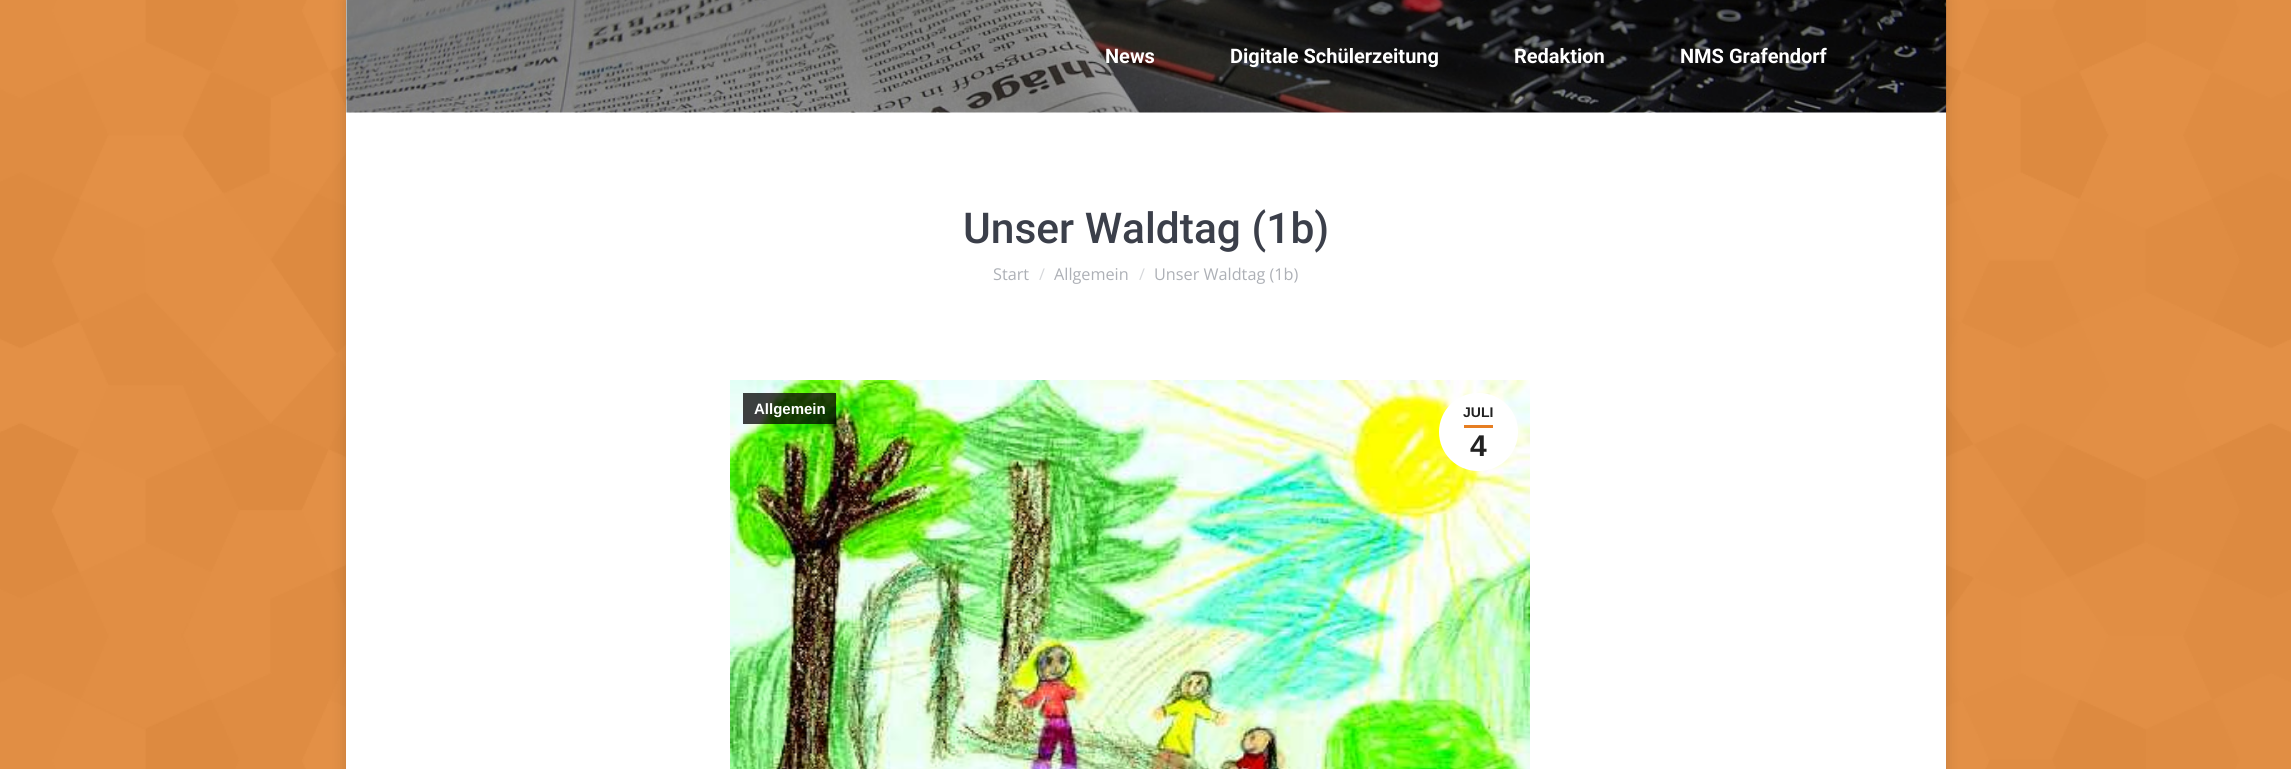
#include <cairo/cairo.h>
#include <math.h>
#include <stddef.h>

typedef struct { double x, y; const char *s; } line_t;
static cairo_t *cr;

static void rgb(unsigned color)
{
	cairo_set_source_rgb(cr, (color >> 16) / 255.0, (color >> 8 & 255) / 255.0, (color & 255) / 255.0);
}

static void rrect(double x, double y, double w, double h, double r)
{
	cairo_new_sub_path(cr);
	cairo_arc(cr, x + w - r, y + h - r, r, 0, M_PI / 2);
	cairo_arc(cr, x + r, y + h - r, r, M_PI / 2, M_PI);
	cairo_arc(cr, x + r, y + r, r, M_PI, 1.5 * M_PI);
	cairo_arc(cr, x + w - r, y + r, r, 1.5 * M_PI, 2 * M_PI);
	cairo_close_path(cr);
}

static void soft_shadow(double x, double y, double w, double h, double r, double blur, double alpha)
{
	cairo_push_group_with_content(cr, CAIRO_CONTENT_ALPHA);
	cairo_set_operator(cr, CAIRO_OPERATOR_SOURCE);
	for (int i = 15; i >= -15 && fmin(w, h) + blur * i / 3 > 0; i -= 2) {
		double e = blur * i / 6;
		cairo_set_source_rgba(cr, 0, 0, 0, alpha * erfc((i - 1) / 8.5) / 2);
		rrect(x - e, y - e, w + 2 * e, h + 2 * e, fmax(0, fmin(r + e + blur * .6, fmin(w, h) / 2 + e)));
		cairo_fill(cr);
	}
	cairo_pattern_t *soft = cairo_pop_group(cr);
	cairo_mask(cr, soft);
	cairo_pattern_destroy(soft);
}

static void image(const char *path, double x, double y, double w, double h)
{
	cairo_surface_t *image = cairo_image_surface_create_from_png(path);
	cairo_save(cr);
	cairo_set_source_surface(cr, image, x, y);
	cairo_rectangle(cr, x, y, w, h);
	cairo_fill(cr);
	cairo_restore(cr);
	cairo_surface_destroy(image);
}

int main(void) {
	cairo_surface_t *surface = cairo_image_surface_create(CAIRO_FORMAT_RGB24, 2291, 769);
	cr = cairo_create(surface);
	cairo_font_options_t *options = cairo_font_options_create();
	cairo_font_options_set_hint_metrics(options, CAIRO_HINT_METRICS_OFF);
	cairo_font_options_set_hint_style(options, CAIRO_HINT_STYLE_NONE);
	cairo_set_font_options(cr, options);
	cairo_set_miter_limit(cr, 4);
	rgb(0xe67e22);
	cairo_paint(cr);
	image("img/1.png", 0, 0, 2291, 769);
	rgb(0x000000);
	soft_shadow(346, 0, 1600, 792, 0, 7.5, 0.15);
	rgb(0xffffff);
	cairo_rectangle(cr, 346, 0, 1600, 769);
	cairo_fill(cr);
	image("img/2.png", 346, 0, 1601, 113);
	image("img/3.png", 730, 380, 800, 389);
	cairo_set_source_rgba(cr, 0, 0, 0, 0.75);
	cairo_rectangle(cr, 743, 393, 93, 31);
	cairo_fill(cr);
	rgb(0xffffff);
	rrect(1439, 393, 79, 78, 39);
	cairo_fill(cr);
	rgb(0xe67e22);
	cairo_rectangle(cr, 1464, 425, 29, 3);
	cairo_fill(cr);
	cairo_select_font_face(cr, "Roboto", CAIRO_FONT_SLANT_NORMAL, CAIRO_FONT_WEIGHT_BOLD);
	cairo_set_font_size(cr, 20);
	rgb(0xffffff);
	{
		static const line_t items[] = {
			{1105, 63, "News"},
			{1230, 63, "Digitale Schülerzeitung"},
			{1514, 63, "Redaktion"},
			{1680, 63, "NMS Grafendorf"},
		};
		for (size_t i = 0; i < sizeof items / sizeof *items; i++) {
			cairo_move_to(cr, items[i].x, items[i].y);
			cairo_show_text(cr, items[i].s);
		}
	}
	cairo_select_font_face(cr, "Roboto Medium", CAIRO_FONT_SLANT_NORMAL, CAIRO_FONT_WEIGHT_NORMAL);
	cairo_set_font_size(cr, 42.5);
	rgb(0x3b3f4a);
	cairo_move_to(cr, 963, 243);
	cairo_show_text(cr, "Unser Waldtag (1b)");
	cairo_select_font_face(cr, "Open Sans", CAIRO_FONT_SLANT_NORMAL, CAIRO_FONT_WEIGHT_NORMAL);
	cairo_set_font_size(cr, 16.25);
	rgb(0xadb0b6);
	cairo_move_to(cr, 993, 280);
	cairo_show_text(cr, "Start");
	rgb(0xd6d8db);
	cairo_move_to(cr, 1039, 280);
	cairo_show_text(cr, "/");
	rgb(0xadb0b6);
	cairo_move_to(cr, 1054, 280);
	cairo_show_text(cr, "Allgemein");
	rgb(0xd6d8db);
	cairo_move_to(cr, 1139, 280);
	cairo_show_text(cr, "/");
	rgb(0xadb0b6);
	cairo_move_to(cr, 1154, 280);
	cairo_show_text(cr, "Unser Waldtag (1b)");
	cairo_select_font_face(cr, "Liberation Sans", CAIRO_FONT_SLANT_NORMAL, CAIRO_FONT_WEIGHT_BOLD);
	cairo_set_font_size(cr, 15);
	rgb(0xffffff);
	cairo_move_to(cr, 754, 414);
	cairo_show_text(cr, "Allgemein");
	cairo_set_font_size(cr, 14);
	rgb(0x222222);
	cairo_move_to(cr, 1463, 417);
	cairo_show_text(cr, "JULI");
	cairo_set_font_size(cr, 30);
	cairo_move_to(cr, 1470, 456);
	cairo_show_text(cr, "4");
	cairo_surface_write_to_png(surface, "page.png");
	cairo_font_options_destroy(options);
	cairo_destroy(cr);
	cairo_surface_destroy(surface);
	return 0;
}
